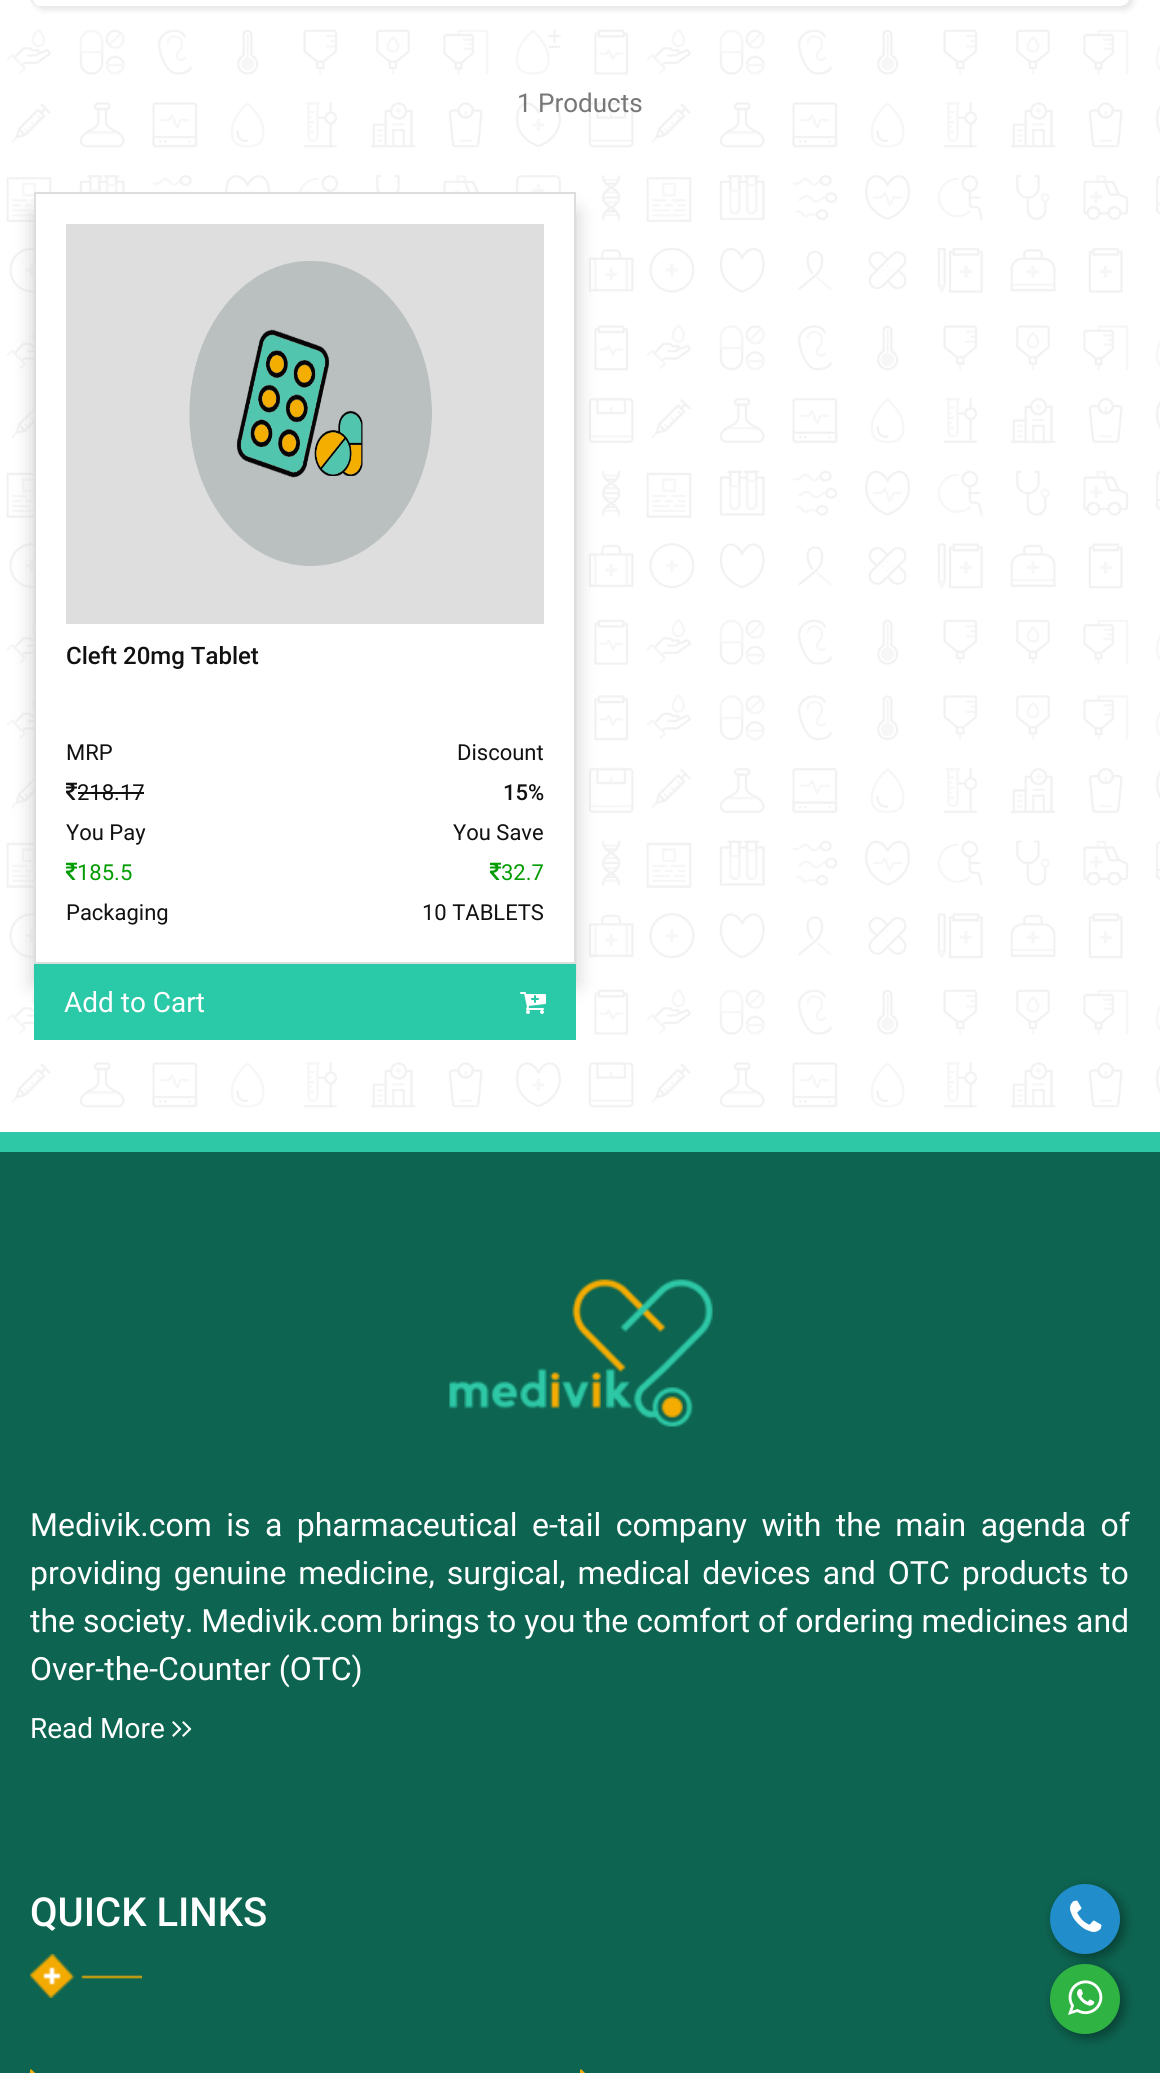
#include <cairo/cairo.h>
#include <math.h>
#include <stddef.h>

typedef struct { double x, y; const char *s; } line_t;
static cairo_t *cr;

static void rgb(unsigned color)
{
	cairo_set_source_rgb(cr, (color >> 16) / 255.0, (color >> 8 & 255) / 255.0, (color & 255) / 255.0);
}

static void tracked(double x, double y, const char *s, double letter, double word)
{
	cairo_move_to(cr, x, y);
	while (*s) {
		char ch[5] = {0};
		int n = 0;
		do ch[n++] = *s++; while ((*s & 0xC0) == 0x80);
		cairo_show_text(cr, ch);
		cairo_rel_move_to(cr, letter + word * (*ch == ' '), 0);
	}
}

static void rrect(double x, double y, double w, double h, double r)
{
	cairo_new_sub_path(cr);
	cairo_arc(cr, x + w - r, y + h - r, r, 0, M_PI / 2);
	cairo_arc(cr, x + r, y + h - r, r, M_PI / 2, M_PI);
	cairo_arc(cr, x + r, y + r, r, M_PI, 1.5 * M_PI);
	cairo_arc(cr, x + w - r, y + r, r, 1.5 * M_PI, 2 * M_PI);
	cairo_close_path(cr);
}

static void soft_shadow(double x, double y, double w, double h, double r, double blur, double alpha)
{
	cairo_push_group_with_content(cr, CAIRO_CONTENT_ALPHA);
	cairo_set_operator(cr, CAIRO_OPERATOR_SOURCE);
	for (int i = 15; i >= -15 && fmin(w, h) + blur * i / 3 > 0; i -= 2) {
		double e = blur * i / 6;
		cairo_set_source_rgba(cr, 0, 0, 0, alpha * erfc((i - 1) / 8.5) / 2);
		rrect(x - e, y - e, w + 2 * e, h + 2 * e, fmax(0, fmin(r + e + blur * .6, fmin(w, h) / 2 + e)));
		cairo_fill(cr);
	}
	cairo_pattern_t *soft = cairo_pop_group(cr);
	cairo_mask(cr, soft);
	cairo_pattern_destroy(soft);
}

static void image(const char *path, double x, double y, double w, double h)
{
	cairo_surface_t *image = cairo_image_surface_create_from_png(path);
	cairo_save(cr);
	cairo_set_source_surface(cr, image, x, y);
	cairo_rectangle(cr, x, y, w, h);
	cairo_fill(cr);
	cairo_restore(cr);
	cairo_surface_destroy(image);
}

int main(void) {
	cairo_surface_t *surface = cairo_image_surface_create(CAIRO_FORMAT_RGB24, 1160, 2073);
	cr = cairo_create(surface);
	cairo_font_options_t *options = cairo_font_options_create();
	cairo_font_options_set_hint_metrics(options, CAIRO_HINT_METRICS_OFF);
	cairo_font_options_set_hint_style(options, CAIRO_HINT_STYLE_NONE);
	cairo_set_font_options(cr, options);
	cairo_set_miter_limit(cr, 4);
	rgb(0xffffff);
	cairo_paint(cr);
	image("img/1.png", 6, 29, 1154, 1103);
	rgb(0x000000);
	soft_shadow(34, -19, 1100, 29, 10, 3, 0.1);
	rgb(0xffffff);
	rrect(30, -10, 1100, 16, 10);
	cairo_fill(cr);
	rgb(0xeaeaea);
	cairo_set_fill_rule(cr, CAIRO_FILL_RULE_EVEN_ODD);
	cairo_new_path(cr);
	cairo_move_to(cr, 40, -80);
	cairo_line_to(cr, 1120, -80);
	cairo_curve_to(cr, 1126, -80, 1130, -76, 1130, -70);
	cairo_line_to(cr, 1130, -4);
	cairo_curve_to(cr, 1130, 2, 1126, 6, 1120, 6);
	cairo_line_to(cr, 40, 6);
	cairo_curve_to(cr, 34, 6, 30, 2, 30, -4);
	cairo_line_to(cr, 30, -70);
	cairo_curve_to(cr, 30, -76, 34, -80, 40, -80);
	cairo_close_path(cr);
	cairo_move_to(cr, 40, -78);
	cairo_line_to(cr, 1120, -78);
	cairo_curve_to(cr, 1126, -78, 1130, -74, 1130, -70);
	cairo_line_to(cr, 1130, -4);
	cairo_curve_to(cr, 1130, 2, 1126, 6, 1120, 6);
	cairo_line_to(cr, 40, 6);
	cairo_curve_to(cr, 36, 6, 32, 2, 32, -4);
	cairo_line_to(cr, 32, -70);
	cairo_curve_to(cr, 32, -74, 36, -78, 40, -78);
	cairo_close_path(cr);
	cairo_fill(cr);
	rgb(0xcccccc);
	soft_shadow(34, 212, 542, 772, 0, 10, 1);
	rgb(0xffffff);
	cairo_rectangle(cr, 35, 193, 540, 770);
	cairo_fill_preserve(cr);
	rgb(0xdddddd);
	cairo_stroke(cr);
	image("img/2.png", 66, 224, 478, 400);
	image("img/3.png", 66, 782, 12, 18);
	rgb(0x111111);
	cairo_rectangle(cr, 78, 792, 66, 2);
	cairo_fill(cr);
	image("img/4.png", 66, 862, 12, 18);
	image("img/4.png", 490, 862, 12, 18);
	rgb(0x2ac9a7);
	cairo_rectangle(cr, 34, 964, 542, 76);
	cairo_fill(cr);
	image("img/5.png", 520, 992, 26, 22);
	rgb(0x0d6551);
	cairo_rectangle(cr, 0, 1152, 1160, 921);
	cairo_fill(cr);
	rgb(0x2ec8a6);
	cairo_rectangle(cr, 0, 1132, 1160, 20);
	cairo_fill(cr);
	image("img/6.png", 449, 1279, 264, 148);
	image("img/7.png", 172, 1721, 10, 16);
	image("img/7.png", 182, 1721, 10, 16);
	image("img/8.png", 30, 1954, 112, 44);
	image("img/9.png", 30, 2069, 5, 4);
	image("img/9.png", 580, 2069, 5, 4);
	rgb(0x000000);
	soft_shadow(1054, 1888, 70, 70, 35, 6, 0.4);
	rgb(0x218dca);
	cairo_arc(cr, 1085, 1919, 35, 0, 2 * M_PI);
	cairo_fill(cr);
	image("img/10.png", 1070, 1900, 32, 32);
	rgb(0x000000);
	soft_shadow(1054, 1968, 70, 70, 35, 6, 0.4);
	rgb(0x2fb343);
	cairo_arc(cr, 1085, 1999, 35, 0, 2 * M_PI);
	cairo_fill(cr);
	image("img/11.png", 1068, 1980, 35, 35);
	cairo_select_font_face(cr, "Roboto", CAIRO_FONT_SLANT_NORMAL, CAIRO_FONT_WEIGHT_NORMAL);
	cairo_set_font_size(cr, 26);
	rgb(0x777777);
	cairo_move_to(cr, 517, 112);
	cairo_show_text(cr, "1 Products");
	cairo_select_font_face(cr, "Roboto Medium", CAIRO_FONT_SLANT_NORMAL, CAIRO_FONT_WEIGHT_NORMAL);
	cairo_set_font_size(cr, 24);
	rgb(0x111111);
	cairo_move_to(cr, 66, 664);
	cairo_show_text(cr, "Cleft 20mg Tablet");
	cairo_select_font_face(cr, "Roboto", CAIRO_FONT_SLANT_NORMAL, CAIRO_FONT_WEIGHT_NORMAL);
	cairo_set_font_size(cr, 22);
	{
		static const line_t items[] = {
			{66, 760, "MRP"},
			{457, 760, "Discount"},
			{77, 800, "218.17"},
		};
		for (size_t i = 0; i < sizeof items / sizeof *items; i++) {
			cairo_move_to(cr, items[i].x, items[i].y);
			cairo_show_text(cr, items[i].s);
		}
	}
	cairo_select_font_face(cr, "Roboto Medium", CAIRO_FONT_SLANT_NORMAL, CAIRO_FONT_WEIGHT_NORMAL);
	cairo_move_to(cr, 503, 800);
	cairo_show_text(cr, "15%");
	cairo_select_font_face(cr, "Roboto", CAIRO_FONT_SLANT_NORMAL, CAIRO_FONT_WEIGHT_NORMAL);
	cairo_move_to(cr, 66, 840);
	cairo_show_text(cr, "You Pay");
	cairo_move_to(cr, 453, 840);
	cairo_show_text(cr, "You Save");
	rgb(0x039c03);
	cairo_move_to(cr, 77, 880);
	cairo_show_text(cr, "185.5");
	cairo_move_to(cr, 501, 880);
	cairo_show_text(cr, "32.7");
	rgb(0x111111);
	cairo_move_to(cr, 66, 920);
	cairo_show_text(cr, "Packaging");
	cairo_move_to(cr, 422, 920);
	cairo_show_text(cr, "10 TABLETS");
	cairo_set_font_size(cr, 28);
	rgb(0xffffff);
	cairo_move_to(cr, 64, 1012);
	cairo_show_text(cr, "Add to Cart");
	cairo_set_font_size(cr, 32);
	tracked(30, 1536, "Medivik.com is a pharmaceutical e-tail company with the main agenda of", 0, 6.5);
	tracked(30, 1584, "providing genuine medicine, surgical, medical devices and OTC products to", 0, 4);
	cairo_move_to(cr, 30, 1632);
	cairo_show_text(cr, "the society. Medivik.com brings to you the comfort of ordering medicines and");
	cairo_move_to(cr, 30, 1680);
	cairo_show_text(cr, "Over-the-Counter (OTC)");
	cairo_set_font_size(cr, 28);
	cairo_move_to(cr, 30, 1738);
	cairo_show_text(cr, "Read More");
	cairo_select_font_face(cr, "Roboto Medium", CAIRO_FONT_SLANT_NORMAL, CAIRO_FONT_WEIGHT_NORMAL);
	cairo_set_font_size(cr, 40);
	cairo_move_to(cr, 30, 1926);
	cairo_show_text(cr, "QUICK LINKS");
	cairo_surface_write_to_png(surface, "page.png");
	cairo_font_options_destroy(options);
	cairo_destroy(cr);
	cairo_surface_destroy(surface);
	return 0;
}
